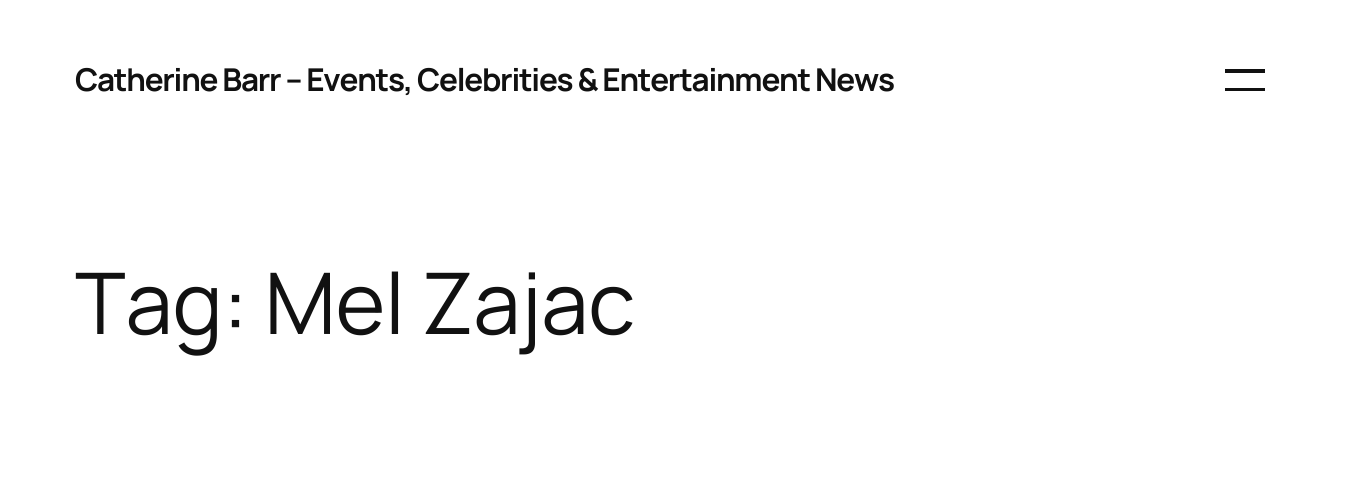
#include <cairo/cairo.h>
#include <math.h>
#include <stddef.h>

static cairo_t *cr;

static void rgb(unsigned color)
{
	cairo_set_source_rgb(cr, (color >> 16) / 255.0, (color >> 8 & 255) / 255.0, (color & 255) / 255.0);
}

static void tracked(double x, double y, const char *s, double letter, double word)
{
	cairo_move_to(cr, x, y);
	while (*s) {
		char ch[5] = {0};
		int n = 0;
		do ch[n++] = *s++; while ((*s & 0xC0) == 0x80);
		cairo_show_text(cr, ch);
		cairo_rel_move_to(cr, letter + word * (*ch == ' '), 0);
	}
}

int main(void) {
	cairo_surface_t *surface = cairo_image_surface_create(CAIRO_FORMAT_RGB24, 1349, 484);
	cr = cairo_create(surface);
	cairo_font_options_t *options = cairo_font_options_create();
	cairo_font_options_set_hint_metrics(options, CAIRO_HINT_METRICS_OFF);
	cairo_font_options_set_hint_style(options, CAIRO_HINT_STYLE_NONE);
	cairo_set_font_options(cr, options);
	cairo_set_miter_limit(cr, 4);
	rgb(0xffffff);
	cairo_paint(cr);
	rgb(0x111111);
	cairo_rectangle(cr, 1225, 69, 40, 4);
	cairo_fill(cr);
	cairo_rectangle(cr, 1225, 88, 40, 3);
	cairo_fill(cr);
	cairo_select_font_face(cr, "Manrope", CAIRO_FONT_SLANT_NORMAL, CAIRO_FONT_WEIGHT_BOLD);
	cairo_set_font_size(cr, 31.45);
	tracked(75, 91, "Catherine Barr – Events, Celebrities & Entertainment News", -1.25, 0);
	cairo_select_font_face(cr, "Manrope", CAIRO_FONT_SLANT_NORMAL, CAIRO_FONT_WEIGHT_NORMAL);
	cairo_set_font_size(cr, 85);
	tracked(75, 334, "Tag: Mel Zajac", -0.25, 0);
	cairo_surface_write_to_png(surface, "page.png");
	cairo_font_options_destroy(options);
	cairo_destroy(cr);
	cairo_surface_destroy(surface);
	return 0;
}
